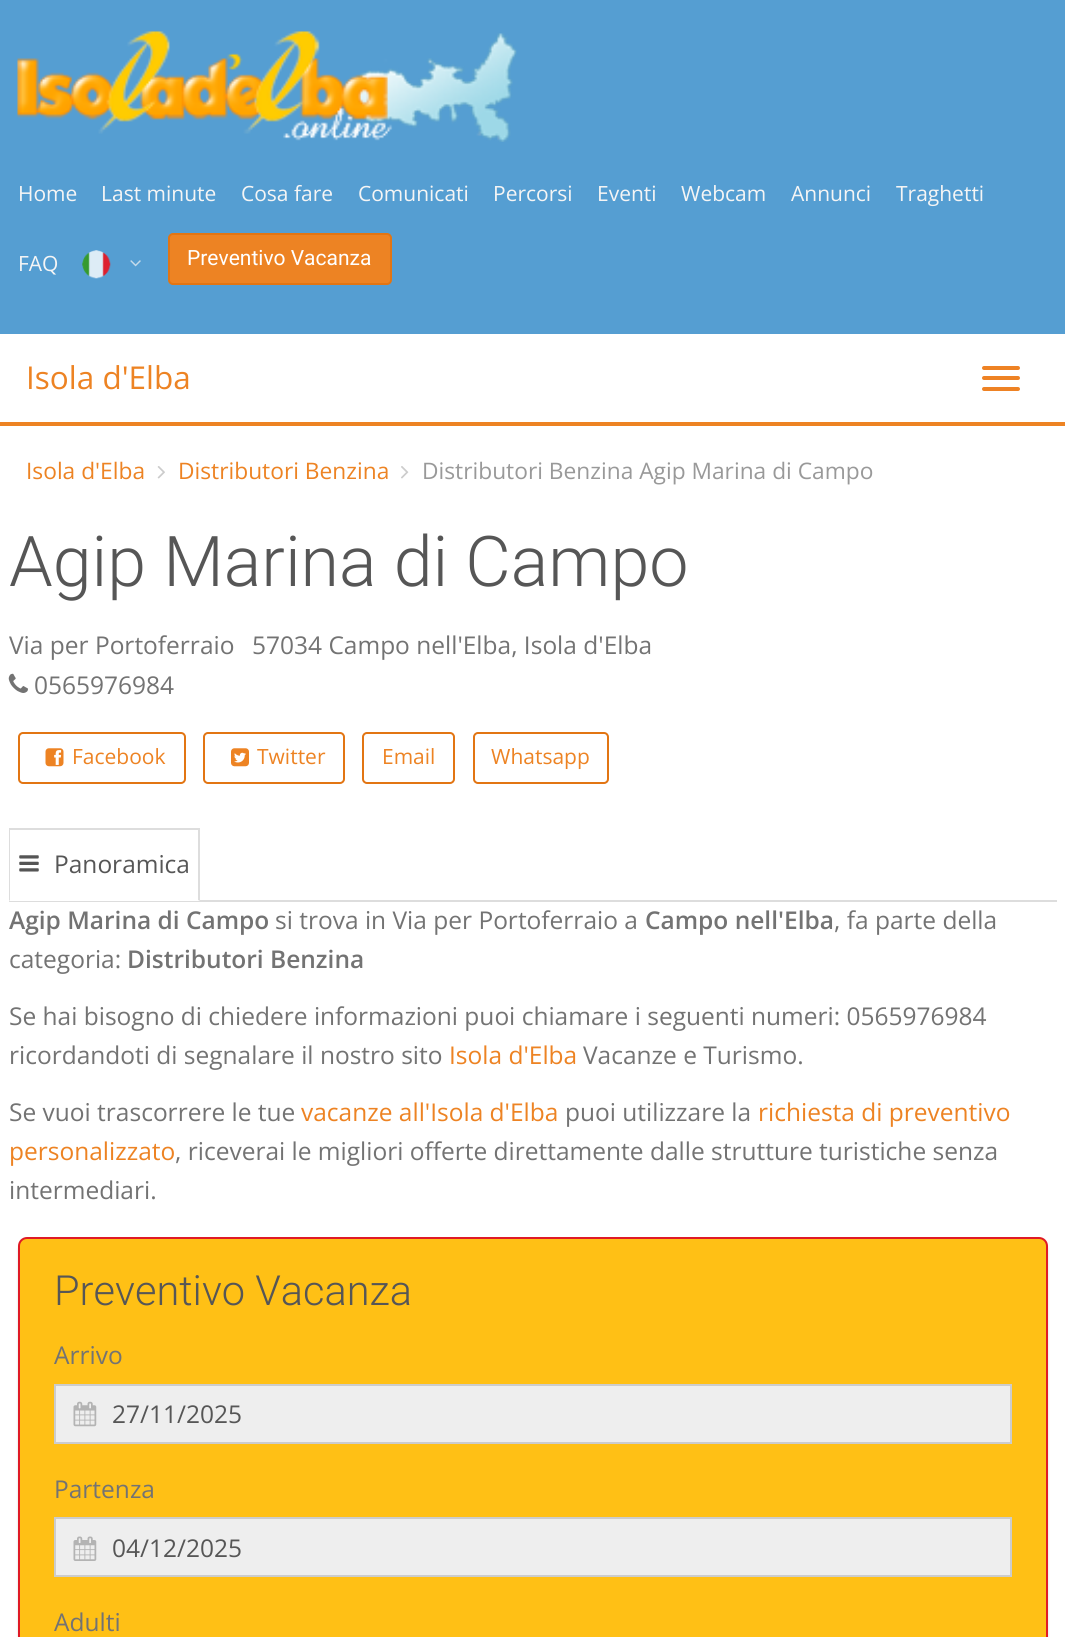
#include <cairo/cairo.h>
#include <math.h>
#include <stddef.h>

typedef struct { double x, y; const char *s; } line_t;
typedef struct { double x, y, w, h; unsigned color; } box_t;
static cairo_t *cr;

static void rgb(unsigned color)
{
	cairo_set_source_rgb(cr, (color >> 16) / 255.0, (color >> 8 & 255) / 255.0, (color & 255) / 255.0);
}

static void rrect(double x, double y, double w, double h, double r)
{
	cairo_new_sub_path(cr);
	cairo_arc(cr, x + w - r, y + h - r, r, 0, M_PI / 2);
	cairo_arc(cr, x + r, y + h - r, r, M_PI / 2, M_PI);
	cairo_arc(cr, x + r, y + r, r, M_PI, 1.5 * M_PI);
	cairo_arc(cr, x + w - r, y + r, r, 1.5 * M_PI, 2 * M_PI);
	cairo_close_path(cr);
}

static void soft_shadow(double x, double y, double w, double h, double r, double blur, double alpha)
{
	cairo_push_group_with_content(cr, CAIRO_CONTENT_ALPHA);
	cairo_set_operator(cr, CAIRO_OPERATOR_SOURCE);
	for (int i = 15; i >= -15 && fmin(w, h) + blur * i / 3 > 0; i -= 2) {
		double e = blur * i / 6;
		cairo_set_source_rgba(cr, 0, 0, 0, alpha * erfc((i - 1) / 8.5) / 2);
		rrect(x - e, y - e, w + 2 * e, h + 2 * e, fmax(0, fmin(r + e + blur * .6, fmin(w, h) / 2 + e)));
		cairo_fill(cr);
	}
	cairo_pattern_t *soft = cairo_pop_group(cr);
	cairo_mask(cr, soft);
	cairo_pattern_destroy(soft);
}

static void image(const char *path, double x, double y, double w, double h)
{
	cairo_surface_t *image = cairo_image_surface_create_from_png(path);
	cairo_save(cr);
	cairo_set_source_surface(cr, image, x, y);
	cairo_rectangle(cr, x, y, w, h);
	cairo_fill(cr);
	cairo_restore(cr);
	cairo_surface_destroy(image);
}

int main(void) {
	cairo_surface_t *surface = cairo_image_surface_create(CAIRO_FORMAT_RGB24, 1065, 1637);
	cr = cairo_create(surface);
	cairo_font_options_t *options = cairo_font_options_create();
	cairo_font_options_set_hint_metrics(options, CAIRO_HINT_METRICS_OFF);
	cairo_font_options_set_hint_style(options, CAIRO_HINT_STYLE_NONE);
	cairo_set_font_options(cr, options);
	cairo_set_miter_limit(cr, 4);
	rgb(0xffffff);
	cairo_paint(cr);
	rgb(0xed8323);
	cairo_rectangle(cr, 0, 422, 1065, 4);
	cairo_fill(cr);
	rgb(0x559ed2);
	cairo_rectangle(cr, 0, 0, 1065, 334);
	cairo_fill(cr);
	image("img/1.png", 17, 31, 500, 111);
	image("img/2.png", 82, 250, 29, 29);
	image("img/3.png", 130, 260, 11, 7);
	rgb(0xed8323);
	rrect(169, 234, 222, 50, 4);
	cairo_fill_preserve(cr);
	rgb(0xe27513);
	cairo_stroke(cr);
	rgb(0xee8224);
	rrect(982, 366, 38, 4, 2);
	cairo_fill(cr);
	rrect(982, 376, 38, 4, 2);
	cairo_fill(cr);
	rrect(982, 387, 38, 4, 2);
	cairo_fill(cr);
	image("img/4.png", 157, 466, 8, 13);
	image("img/5.png", 401, 466, 8, 13);
	image("img/6.png", 8, 673, 20, 20);
	rrect(19, 733, 166, 50, 4);
	rgb(0xe27513);
	cairo_stroke(cr);
	image("img/7.png", 45, 748, 19, 19);
	rrect(204, 733, 140, 50, 4);
	cairo_stroke(cr);
	image("img/8.png", 231, 748, 18, 19);
	rrect(363, 733, 91, 50, 4);
	cairo_stroke(cr);
	rrect(474, 733, 134, 50, 4);
	cairo_stroke(cr);
	{
		static const box_t items[] = {
			{9, 900, 1048, 2, 0xdddddd},
			{9, 900, 191, 1, 0xffffff},
			{9, 828, 191, 2, 0xdddddd},
		};
		for (size_t i = 0; i < sizeof items / sizeof *items; i++) {
			rgb(items[i].color);
			cairo_rectangle(cr, items[i].x, items[i].y, items[i].w, items[i].h);
			cairo_fill(cr);
		}
	}
	cairo_new_path(cr);
	cairo_move_to(cr, 200, 828);
	cairo_line_to(cr, 200, 901);
	cairo_line_to(cr, 198, 900);
	cairo_line_to(cr, 198, 830);
	cairo_close_path(cr);
	cairo_fill(cr);
	cairo_new_path(cr);
	cairo_move_to(cr, 9, 901);
	cairo_line_to(cr, 9, 828);
	cairo_line_to(cr, 10, 830);
	cairo_line_to(cr, 10, 900);
	cairo_close_path(cr);
	cairo_fill(cr);
	image("img/9.png", 19, 855, 20, 17);
	rgb(0x000000);
	soft_shadow(18, 1241, 1030, 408, 9, 1, 0.15);
	rgb(0xffc015);
	rrect(19, 1238, 1028, 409, 8);
	cairo_fill_preserve(cr);
	rgb(0xdf1a25);
	cairo_stroke(cr);
	rgb(0xeeeeee);
	cairo_rectangle(cr, 55, 1385, 956, 58);
	cairo_fill_preserve(cr);
	rgb(0xcccccc);
	cairo_stroke(cr);
	image("img/10.png", 73, 1401, 24, 26);
	rgb(0xeeeeee);
	cairo_rectangle(cr, 55, 1518, 956, 58);
	cairo_fill_preserve(cr);
	rgb(0xcccccc);
	cairo_stroke(cr);
	image("img/11.png", 73, 1536, 24, 25);
	cairo_select_font_face(cr, "Open Sans", CAIRO_FONT_SLANT_NORMAL, CAIRO_FONT_WEIGHT_NORMAL);
	cairo_set_font_size(cr, 21);
	rgb(0xf5f5f5);
	{
		static const line_t items[] = {
			{18, 201, "Home"},
			{101, 201, "Last minute"},
			{241, 201, "Cosa fare"},
			{358, 201, "Comunicati"},
			{493, 201, "Percorsi"},
			{597, 201, "Eventi"},
			{681, 201, "Webcam"},
			{791, 201, "Annunci"},
			{896, 201, "Traghetti"},
			{18, 271, "FAQ"},
		};
		for (size_t i = 0; i < sizeof items / sizeof *items; i++) {
			cairo_move_to(cr, items[i].x, items[i].y);
			cairo_show_text(cr, items[i].s);
		}
	}
	cairo_select_font_face(cr, "Roboto", CAIRO_FONT_SLANT_NORMAL, CAIRO_FONT_WEIGHT_NORMAL);
	rgb(0xffffff);
	cairo_move_to(cr, 187, 265);
	cairo_show_text(cr, "Preventivo Vacanza");
	cairo_select_font_face(cr, "Open Sans", CAIRO_FONT_SLANT_NORMAL, CAIRO_FONT_WEIGHT_NORMAL);
	cairo_set_font_size(cr, 31.5);
	rgb(0xed8323);
	cairo_move_to(cr, 26, 389);
	cairo_show_text(cr, "Isola d'Elba");
	cairo_set_font_size(cr, 22.75);
	cairo_move_to(cr, 26, 479);
	cairo_show_text(cr, "Isola d'Elba");
	cairo_move_to(cr, 178, 479);
	cairo_show_text(cr, "Distributori Benzina");
	rgb(0x999999);
	cairo_move_to(cr, 422, 479);
	cairo_show_text(cr, "Distributori Benzina Agip Marina di Campo");
	cairo_select_font_face(cr, "Roboto Light", CAIRO_FONT_SLANT_NORMAL, CAIRO_FONT_WEIGHT_NORMAL);
	cairo_set_font_size(cr, 70);
	rgb(0x565656);
	cairo_move_to(cr, 9, 586);
	cairo_show_text(cr, "Agip Marina di Campo");
	cairo_select_font_face(cr, "Open Sans", CAIRO_FONT_SLANT_NORMAL, CAIRO_FONT_WEIGHT_NORMAL);
	cairo_set_font_size(cr, 24.5);
	rgb(0x737373);
	{
		static const line_t items[] = {
			{9, 654, "Via per Portoferraio"},
			{252, 654, "57034 Campo nell'Elba, Isola d'Elba"},
			{34, 694, "0565976984"},
		};
		for (size_t i = 0; i < sizeof items / sizeof *items; i++) {
			cairo_move_to(cr, items[i].x, items[i].y);
			cairo_show_text(cr, items[i].s);
		}
	}
	cairo_set_font_size(cr, 21);
	rgb(0xed8323);
	{
		static const line_t items[] = {
			{72, 764, "Facebook"},
			{257, 764, "Twitter"},
			{382, 764, "Email"},
			{491, 764, "Whatsapp"},
		};
		for (size_t i = 0; i < sizeof items / sizeof *items; i++) {
			cairo_move_to(cr, items[i].x, items[i].y);
			cairo_show_text(cr, items[i].s);
		}
	}
	cairo_set_font_size(cr, 24.5);
	rgb(0x565656);
	cairo_move_to(cr, 54, 873);
	cairo_show_text(cr, "Panoramica");
	cairo_select_font_face(cr, "Open Sans SemiBold", CAIRO_FONT_SLANT_NORMAL, CAIRO_FONT_WEIGHT_NORMAL);
	rgb(0x737373);
	cairo_move_to(cr, 9, 929);
	cairo_show_text(cr, "Agip Marina di Campo");
	cairo_select_font_face(cr, "Open Sans", CAIRO_FONT_SLANT_NORMAL, CAIRO_FONT_WEIGHT_NORMAL);
	cairo_move_to(cr, 275, 929);
	cairo_show_text(cr, "si trova in Via per Portoferraio a");
	cairo_select_font_face(cr, "Open Sans SemiBold", CAIRO_FONT_SLANT_NORMAL, CAIRO_FONT_WEIGHT_NORMAL);
	cairo_move_to(cr, 645, 929);
	cairo_show_text(cr, "Campo nell'Elba");
	cairo_select_font_face(cr, "Open Sans", CAIRO_FONT_SLANT_NORMAL, CAIRO_FONT_WEIGHT_NORMAL);
	cairo_move_to(cr, 834, 929);
	cairo_show_text(cr, ", fa parte della");
	cairo_move_to(cr, 9, 968);
	cairo_show_text(cr, "categoria:");
	cairo_select_font_face(cr, "Open Sans SemiBold", CAIRO_FONT_SLANT_NORMAL, CAIRO_FONT_WEIGHT_NORMAL);
	cairo_move_to(cr, 127, 968);
	cairo_show_text(cr, "Distributori Benzina");
	cairo_select_font_face(cr, "Open Sans", CAIRO_FONT_SLANT_NORMAL, CAIRO_FONT_WEIGHT_NORMAL);
	cairo_move_to(cr, 9, 1025);
	cairo_show_text(cr, "Se hai bisogno di chiedere informazioni puoi chiamare i seguenti numeri: 0565976984");
	cairo_move_to(cr, 9, 1064);
	cairo_show_text(cr, "ricordandoti di segnalare il nostro sito");
	rgb(0xed8323);
	cairo_move_to(cr, 449, 1064);
	cairo_show_text(cr, "Isola d'Elba");
	rgb(0x737373);
	cairo_move_to(cr, 583, 1064);
	cairo_show_text(cr, "Vacanze e Turismo.");
	cairo_move_to(cr, 9, 1121);
	cairo_show_text(cr, "Se vuoi trascorrere le tue");
	rgb(0xed8323);
	cairo_move_to(cr, 301, 1121);
	cairo_show_text(cr, "vacanze all'Isola d'Elba");
	rgb(0x737373);
	cairo_move_to(cr, 565, 1121);
	cairo_show_text(cr, "puoi utilizzare la");
	rgb(0xed8323);
	cairo_move_to(cr, 758, 1121);
	cairo_show_text(cr, "richiesta di preventivo");
	cairo_move_to(cr, 9, 1160);
	cairo_show_text(cr, "personalizzato");
	rgb(0x737373);
	cairo_move_to(cr, 175, 1160);
	cairo_show_text(cr, ", riceverai le migliori offerte direttamente dalle strutture turistiche senza");
	cairo_move_to(cr, 9, 1199);
	cairo_show_text(cr, "intermediari.");
	cairo_select_font_face(cr, "Roboto Light", CAIRO_FONT_SLANT_NORMAL, CAIRO_FONT_WEIGHT_NORMAL);
	cairo_set_font_size(cr, 41.5);
	rgb(0x565656);
	cairo_move_to(cr, 54, 1305);
	cairo_show_text(cr, "Preventivo Vacanza");
	cairo_select_font_face(cr, "Open Sans", CAIRO_FONT_SLANT_NORMAL, CAIRO_FONT_WEIGHT_NORMAL);
	cairo_set_font_size(cr, 24.5);
	rgb(0x737373);
	cairo_move_to(cr, 54, 1364);
	cairo_show_text(cr, "Arrivo");
	rgb(0x565656);
	cairo_move_to(cr, 112, 1423);
	cairo_show_text(cr, "27/11/2025");
	rgb(0x737373);
	cairo_move_to(cr, 54, 1498);
	cairo_show_text(cr, "Partenza");
	rgb(0x565656);
	cairo_move_to(cr, 112, 1557);
	cairo_show_text(cr, "04/12/2025");
	rgb(0x737373);
	cairo_move_to(cr, 54, 1631);
	cairo_show_text(cr, "Adulti");
	cairo_surface_write_to_png(surface, "page.png");
	cairo_font_options_destroy(options);
	cairo_destroy(cr);
	cairo_surface_destroy(surface);
	return 0;
}
